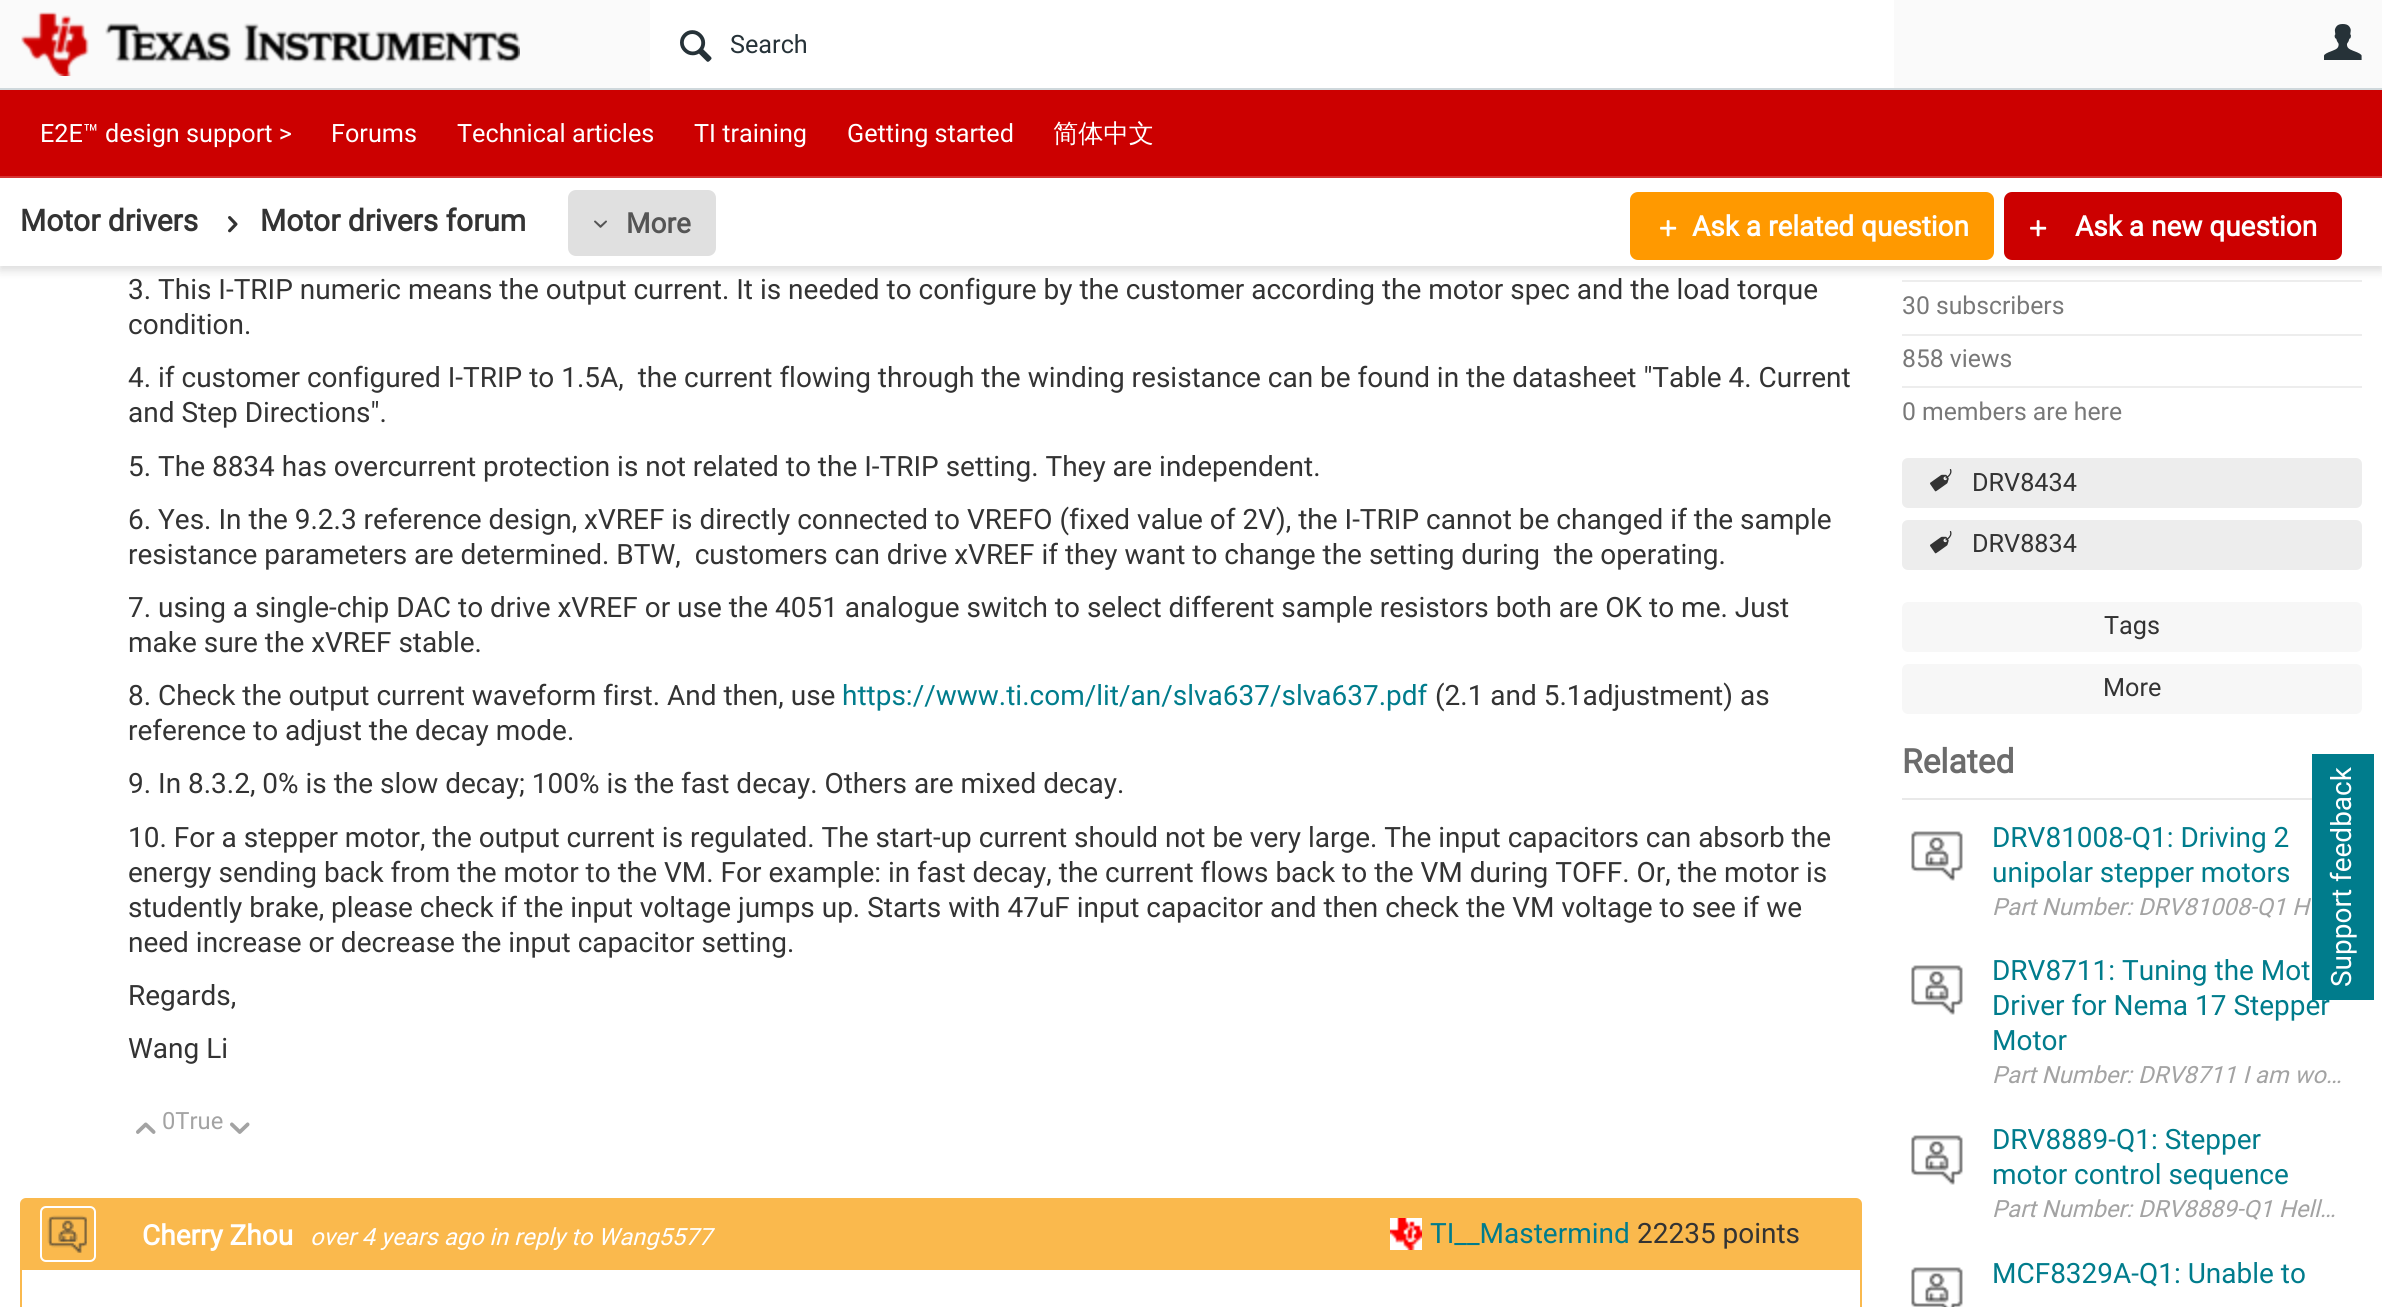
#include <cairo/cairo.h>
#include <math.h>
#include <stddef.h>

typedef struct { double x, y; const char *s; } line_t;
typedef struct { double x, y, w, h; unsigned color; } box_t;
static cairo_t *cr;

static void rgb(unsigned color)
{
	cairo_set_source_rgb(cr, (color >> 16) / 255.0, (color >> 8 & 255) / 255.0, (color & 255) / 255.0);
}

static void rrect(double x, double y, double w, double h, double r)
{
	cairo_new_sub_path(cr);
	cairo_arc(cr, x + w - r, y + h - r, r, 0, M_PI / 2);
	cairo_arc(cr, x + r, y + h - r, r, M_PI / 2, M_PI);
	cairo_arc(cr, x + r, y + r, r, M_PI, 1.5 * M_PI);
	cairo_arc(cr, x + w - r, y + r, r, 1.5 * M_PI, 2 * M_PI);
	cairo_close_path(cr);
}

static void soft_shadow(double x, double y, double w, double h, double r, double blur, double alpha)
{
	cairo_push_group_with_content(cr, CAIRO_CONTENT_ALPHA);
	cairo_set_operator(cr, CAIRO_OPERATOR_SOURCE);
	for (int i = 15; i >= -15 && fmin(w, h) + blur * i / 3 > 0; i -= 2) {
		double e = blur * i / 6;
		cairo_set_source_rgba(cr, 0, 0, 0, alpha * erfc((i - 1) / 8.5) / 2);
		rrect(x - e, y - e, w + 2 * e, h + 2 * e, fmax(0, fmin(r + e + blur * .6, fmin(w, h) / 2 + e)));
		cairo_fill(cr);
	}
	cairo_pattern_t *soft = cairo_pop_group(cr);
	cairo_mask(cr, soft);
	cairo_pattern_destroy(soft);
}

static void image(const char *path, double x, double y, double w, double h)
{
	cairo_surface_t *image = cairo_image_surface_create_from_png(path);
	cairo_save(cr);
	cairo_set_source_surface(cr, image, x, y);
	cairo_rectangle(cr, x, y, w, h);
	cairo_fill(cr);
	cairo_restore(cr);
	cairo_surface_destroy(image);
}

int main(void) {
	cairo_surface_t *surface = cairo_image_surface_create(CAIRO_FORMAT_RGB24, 2382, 1307);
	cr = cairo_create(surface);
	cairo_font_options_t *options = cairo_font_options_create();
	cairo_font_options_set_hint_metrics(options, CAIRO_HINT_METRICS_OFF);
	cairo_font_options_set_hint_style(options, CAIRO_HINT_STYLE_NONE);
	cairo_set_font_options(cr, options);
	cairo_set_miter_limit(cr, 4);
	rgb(0xffffff);
	cairo_paint(cr);
	rgb(0xededed);
	cairo_rectangle(cr, 1902, 280, 460, 2);
	cairo_fill(cr);
	rgb(0x000000);
	soft_shadow(0, 4, 2382, 266, 0, 5, 0.15);
	{
		static const box_t items[] = {
			{0, 178, 2382, 88, 0xffffff},
			{0, 0, 2382, 88, 0xfafafa},
			{0, 88, 2382, 2, 0xcfd8dc},
		};
		for (size_t i = 0; i < sizeof items / sizeof *items; i++) {
			rgb(items[i].color);
			cairo_rectangle(cr, items[i].x, items[i].y, items[i].w, items[i].h);
			cairo_fill(cr);
		}
	}
	image("img/1.png", 21, 12, 499, 64);
	rgb(0xffffff);
	cairo_rectangle(cr, 650, 0, 1244, 88);
	cairo_fill(cr);
	image("img/2.png", 680, 30, 32, 32);
	image("img/3.png", 2324, 24, 38, 36);
	rgb(0xcc0000);
	cairo_rectangle(cr, 0, 90, 2382, 86);
	cairo_fill(cr);
	rgb(0xd63333);
	cairo_rectangle(cr, 0, 176, 2382, 2);
	cairo_fill(cr);
	image("img/4.png", 228, 216, 10, 17);
	rgb(0xe0e0e0);
	rrect(568, 190, 148, 66, 8);
	cairo_fill(cr);
	image("img/5.png", 594, 220, 13, 8);
	rgb(0xff9900);
	rrect(1630, 192, 364, 68, 8);
	cairo_fill(cr);
	image("img/6.png", 1660, 220, 17, 17);
	rgb(0xcc0000);
	rrect(2004, 192, 338, 68, 8);
	cairo_fill(cr);
	image("img/7.png", 2030, 220, 17, 17);
	image("img/8.png", 136, 1122, 20, 12);
	image("img/9.png", 230, 1122, 20, 12);
	rrect(21, 1199, 1840, 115, 5);
	rgb(0xfab94d);
	cairo_stroke(cr);
	cairo_rectangle(cr, 22, 1200, 1838, 70);
	cairo_fill(cr);
	image("img/10.png", 47, 1215, 40, 38);
	rrect(41, 1207, 54, 54, 5);
	rgb(0xffffff);
	cairo_stroke(cr);
	image("img/11.png", 48, 1216, 39, 37);
	image("img/12.png", 1390, 1218, 32, 32);
	rgb(0xededed);
	cairo_rectangle(cr, 1902, 334, 460, 2);
	cairo_fill(cr);
	cairo_rectangle(cr, 1902, 386, 460, 2);
	cairo_fill(cr);
	rrect(1902, 458, 460, 50, 6);
	cairo_fill(cr);
	image("img/13.png", 1930, 469, 22, 23);
	rrect(1902, 520, 460, 50, 6);
	cairo_fill(cr);
	image("img/13.png", 1930, 531, 22, 23);
	rgb(0xf7f7f7);
	rrect(1902, 602, 460, 50, 6);
	cairo_fill(cr);
	rrect(1902, 664, 460, 50, 6);
	cairo_fill(cr);
	rgb(0xe9e9e9);
	cairo_rectangle(cr, 1902, 798, 410, 2);
	cairo_fill(cr);
	image("img/14.png", 1911, 831, 52, 50);
	image("img/15.png", 1911, 831, 52, 50);
	image("img/14.png", 1911, 965, 52, 50);
	image("img/15.png", 1911, 965, 52, 50);
	image("img/14.png", 1911, 1135, 52, 50);
	image("img/15.png", 1911, 1135, 52, 50);
	image("img/16.png", 1911, 1267, 52, 40);
	image("img/17.png", 1911, 1267, 52, 40);
	rgb(0x007c8c);
	cairo_rectangle(cr, 2312, 754, 62, 246);
	cairo_fill(cr);
	cairo_select_font_face(cr, "Roboto", CAIRO_FONT_SLANT_NORMAL, CAIRO_FONT_WEIGHT_NORMAL);
	cairo_set_font_size(cr, 25.25);
	rgb(0x263238);
	cairo_move_to(cr, 730, 53);
	cairo_show_text(cr, "Search");
	rgb(0xffffff);
	{
		static const line_t items[] = {
			{40, 142, "E2E™ design support >"},
			{331, 142, "Forums"},
			{457, 142, "Technical articles"},
			{694, 142, "TI training"},
			{847, 142, "Getting started"},
		};
		for (size_t i = 0; i < sizeof items / sizeof *items; i++) {
			cairo_move_to(cr, items[i].x, items[i].y);
			cairo_show_text(cr, items[i].s);
		}
	}
	cairo_select_font_face(cr, "WenQuanYi Zen Hei Medium", CAIRO_FONT_SLANT_NORMAL, CAIRO_FONT_WEIGHT_NORMAL);
	cairo_move_to(cr, 1053, 142);
	cairo_show_text(cr, "简体中文");
	cairo_select_font_face(cr, "Roboto", CAIRO_FONT_SLANT_NORMAL, CAIRO_FONT_WEIGHT_BOLD);
	cairo_set_font_size(cr, 30);
	rgb(0x333333);
	cairo_move_to(cr, 20, 231);
	cairo_show_text(cr, "Motor drivers");
	cairo_move_to(cr, 260, 231);
	cairo_show_text(cr, "Motor drivers forum");
	cairo_set_font_size(cr, 28);
	rgb(0x555555);
	cairo_move_to(cr, 626, 233);
	cairo_show_text(cr, "More");
	rgb(0xffffff);
	cairo_move_to(cr, 1692, 236);
	cairo_show_text(cr, "Ask a related question");
	cairo_move_to(cr, 2075, 236);
	cairo_show_text(cr, "Ask a new question");
	cairo_select_font_face(cr, "Roboto", CAIRO_FONT_SLANT_NORMAL, CAIRO_FONT_WEIGHT_NORMAL);
	rgb(0x333333);
	{
		static const line_t items[] = {
			{128, 299, "3. This I-TRIP numeric means the output current. It is needed to configure by the customer according the motor spec and the load torque"},
			{128, 334, "condition."},
			{128, 387, "4. if customer configured I-TRIP to 1.5A,  the current flowing through the winding resistance can be found in the datasheet \"Table 4. Current"},
			{128, 422, "and Step Directions\"."},
			{128, 476, "5. The 8834 has overcurrent protection is not related to the I-TRIP setting. They are independent."},
			{128, 529, "6. Yes. In the 9.2.3 reference design, xVREF is directly connected to VREFO (fixed value of 2V), the I-TRIP cannot be changed if the sample"},
			{128, 564, "resistance parameters are determined. BTW,  customers can drive xVREF if they want to change the setting during  the operating."},
			{128, 617, "7. using a single-chip DAC to drive xVREF or use the 4051 analogue switch to select different sample resistors both are OK to me. Just"},
			{128, 652, "make sure the xVREF stable."},
			{128, 705, "8. Check the output current waveform first. And then, use"},
		};
		for (size_t i = 0; i < sizeof items / sizeof *items; i++) {
			cairo_move_to(cr, items[i].x, items[i].y);
			cairo_show_text(cr, items[i].s);
		}
	}
	rgb(0x007c8c);
	cairo_move_to(cr, 842, 705);
	cairo_show_text(cr, "https://www.ti.com/lit/an/slva637/slva637.pdf");
	rgb(0x333333);
	{
		static const line_t items[] = {
			{1435, 705, "(2.1 and 5.1adjustment) as"},
			{128, 740, "reference to adjust the decay mode."},
			{128, 793, "9. In 8.3.2, 0% is the slow decay; 100% is the fast decay. Others are mixed decay."},
			{128, 847, "10. For a stepper motor, the output current is regulated. The start-up current should not be very large. The input capacitors can absorb the"},
			{128, 882, "energy sending back from the motor to the VM. For example: in fast decay, the current flows back to the VM during TOFF. Or, the motor is"},
			{128, 917, "studently brake, please check if the input voltage jumps up. Starts with 47uF input capacitor and then check the VM voltage to see if we"},
			{128, 952, "need increase or decrease the input capacitor setting."},
			{128, 1005, "Regards,"},
			{128, 1058, "Wang Li"},
		};
		for (size_t i = 0; i < sizeof items / sizeof *items; i++) {
			cairo_move_to(cr, items[i].x, items[i].y);
			cairo_show_text(cr, items[i].s);
		}
	}
	cairo_set_font_size(cr, 23.75);
	rgb(0xa3a3a3);
	cairo_move_to(cr, 162, 1129);
	cairo_show_text(cr, "0True");
	cairo_select_font_face(cr, "Roboto", CAIRO_FONT_SLANT_NORMAL, CAIRO_FONT_WEIGHT_BOLD);
	cairo_set_font_size(cr, 28);
	rgb(0xffffff);
	cairo_move_to(cr, 142, 1245);
	cairo_show_text(cr, "Cherry Zhou");
	cairo_select_font_face(cr, "Roboto", CAIRO_FONT_SLANT_ITALIC, CAIRO_FONT_WEIGHT_NORMAL);
	cairo_set_font_size(cr, 23.75);
	cairo_move_to(cr, 310, 1245);
	cairo_show_text(cr, "over 4 years ago in reply to Wang5577");
	cairo_select_font_face(cr, "Roboto", CAIRO_FONT_SLANT_NORMAL, CAIRO_FONT_WEIGHT_NORMAL);
	cairo_set_font_size(cr, 28);
	rgb(0x007c8c);
	cairo_move_to(cr, 1430, 1243);
	cairo_show_text(cr, "TI__Mastermind");
	rgb(0x333333);
	cairo_move_to(cr, 1637, 1243);
	cairo_show_text(cr, "22235 points");
	cairo_set_font_size(cr, 24.75);
	rgb(0x787878);
	{
		static const line_t items[] = {
			{1902, 314, "30 subscribers"},
			{1902, 367, "858 views"},
			{1902, 420, "0 members are here"},
		};
		for (size_t i = 0; i < sizeof items / sizeof *items; i++) {
			cairo_move_to(cr, items[i].x, items[i].y);
			cairo_show_text(cr, items[i].s);
		}
	}
	cairo_set_font_size(cr, 25.25);
	rgb(0x333333);
	{
		static const line_t items[] = {
			{1972, 491, "DRV8434"},
			{1972, 552, "DRV8834"},
			{2104, 634, "Tags"},
			{2103, 696, "More"},
		};
		for (size_t i = 0; i < sizeof items / sizeof *items; i++) {
			cairo_move_to(cr, items[i].x, items[i].y);
			cairo_show_text(cr, items[i].s);
		}
	}
	cairo_select_font_face(cr, "Roboto", CAIRO_FONT_SLANT_NORMAL, CAIRO_FONT_WEIGHT_BOLD);
	cairo_set_font_size(cr, 33.5);
	rgb(0x6c6c6c);
	cairo_move_to(cr, 1902, 773);
	cairo_show_text(cr, "Related");
	cairo_select_font_face(cr, "Roboto", CAIRO_FONT_SLANT_NORMAL, CAIRO_FONT_WEIGHT_NORMAL);
	cairo_set_font_size(cr, 28);
	rgb(0x007c8c);
	cairo_move_to(cr, 1992, 847);
	cairo_show_text(cr, "DRV81008-Q1: Driving 2");
	cairo_move_to(cr, 1992, 882);
	cairo_show_text(cr, "unipolar stepper motors");
	cairo_select_font_face(cr, "Roboto", CAIRO_FONT_SLANT_ITALIC, CAIRO_FONT_WEIGHT_NORMAL);
	cairo_set_font_size(cr, 23.75);
	rgb(0xa3a3a3);
	cairo_move_to(cr, 1992, 915);
	cairo_show_text(cr, "Part Number: DRV81008-Q1 H");
	cairo_select_font_face(cr, "Roboto", CAIRO_FONT_SLANT_NORMAL, CAIRO_FONT_WEIGHT_NORMAL);
	cairo_set_font_size(cr, 28);
	rgb(0x007c8c);
	{
		static const line_t items[] = {
			{1992, 980, "DRV8711: Tuning the Mot"},
			{1992, 1015, "Driver for Nema 17 Stepper"},
			{1992, 1050, "Motor"},
		};
		for (size_t i = 0; i < sizeof items / sizeof *items; i++) {
			cairo_move_to(cr, items[i].x, items[i].y);
			cairo_show_text(cr, items[i].s);
		}
	}
	cairo_select_font_face(cr, "Roboto", CAIRO_FONT_SLANT_ITALIC, CAIRO_FONT_WEIGHT_NORMAL);
	cairo_set_font_size(cr, 23.75);
	rgb(0xa3a3a3);
	cairo_move_to(cr, 1992, 1083);
	cairo_show_text(cr, "Part Number: DRV8711 I am wo…");
	cairo_select_font_face(cr, "Roboto", CAIRO_FONT_SLANT_NORMAL, CAIRO_FONT_WEIGHT_NORMAL);
	cairo_set_font_size(cr, 28);
	rgb(0x007c8c);
	cairo_move_to(cr, 1992, 1149);
	cairo_show_text(cr, "DRV8889-Q1: Stepper");
	cairo_move_to(cr, 1992, 1184);
	cairo_show_text(cr, "motor control sequence");
	cairo_select_font_face(cr, "Roboto", CAIRO_FONT_SLANT_ITALIC, CAIRO_FONT_WEIGHT_NORMAL);
	cairo_set_font_size(cr, 23.75);
	rgb(0xa3a3a3);
	cairo_move_to(cr, 1992, 1217);
	cairo_show_text(cr, "Part Number: DRV8889-Q1 Hell…");
	cairo_select_font_face(cr, "Roboto", CAIRO_FONT_SLANT_NORMAL, CAIRO_FONT_WEIGHT_NORMAL);
	cairo_set_font_size(cr, 28);
	rgb(0x007c8c);
	cairo_move_to(cr, 1992, 1283);
	cairo_show_text(cr, "MCF8329A-Q1: Unable to");
	rgb(0xffffff);
	cairo_save(cr);
	cairo_translate(cr, 2351, 987);
	cairo_rotate(cr, -90 * M_PI / 180);
	cairo_move_to(cr, 0, 0);
	cairo_show_text(cr, "Support feedback");
	cairo_restore(cr);
	cairo_surface_write_to_png(surface, "page.png");
	cairo_font_options_destroy(options);
	cairo_destroy(cr);
	cairo_surface_destroy(surface);
	return 0;
}
